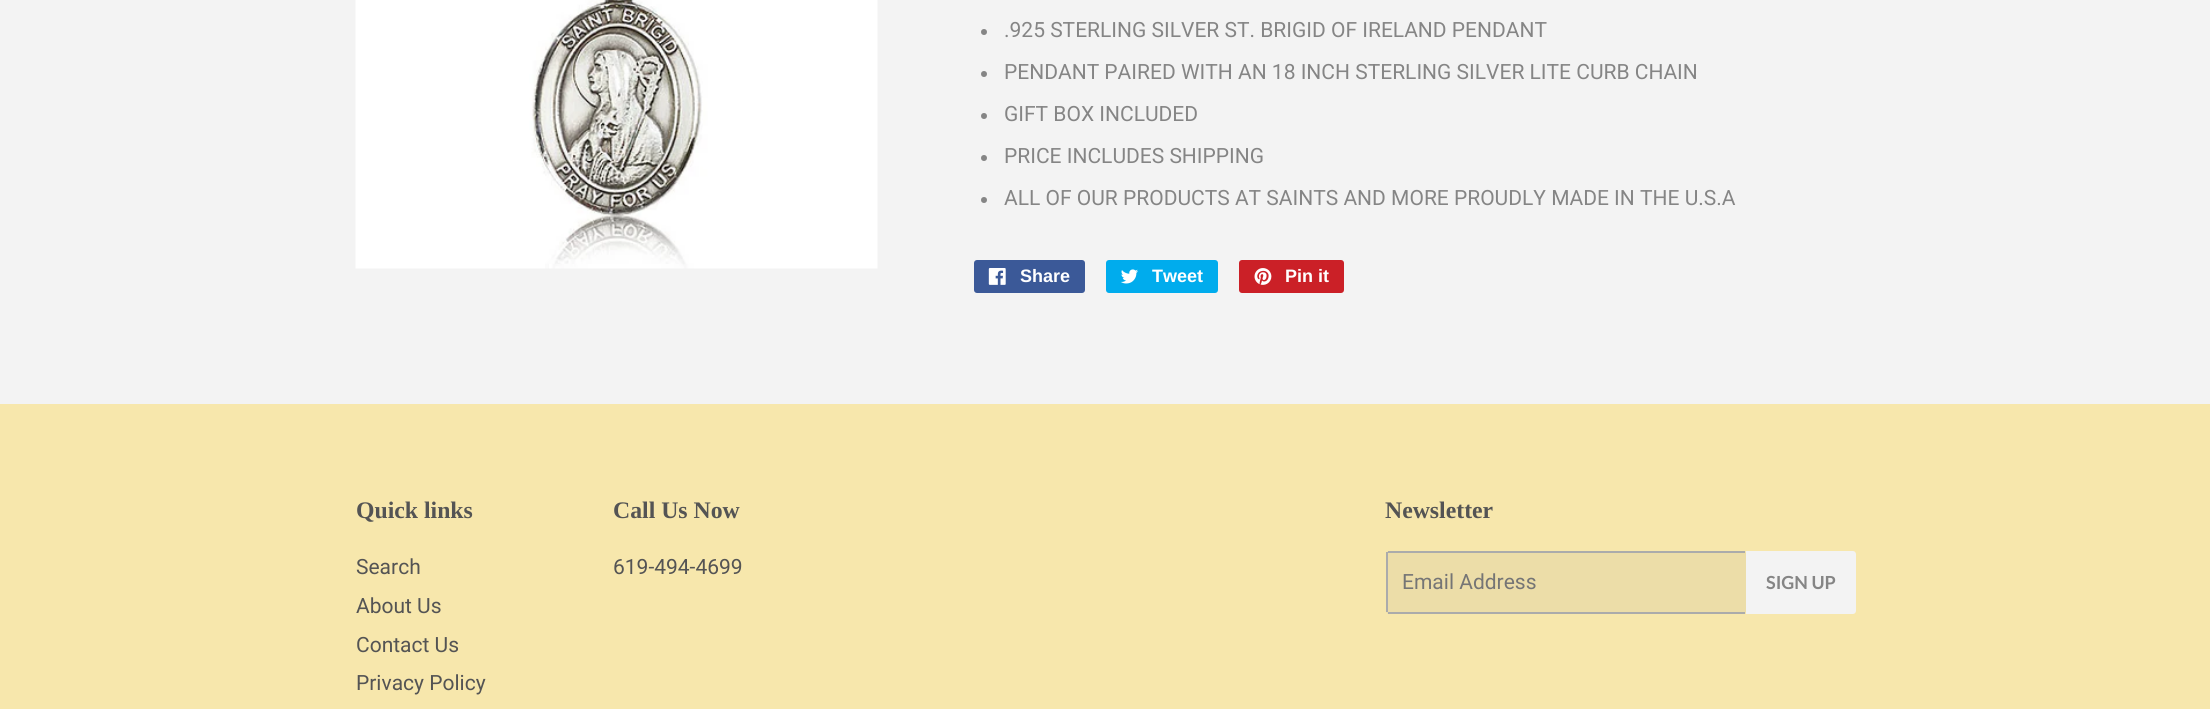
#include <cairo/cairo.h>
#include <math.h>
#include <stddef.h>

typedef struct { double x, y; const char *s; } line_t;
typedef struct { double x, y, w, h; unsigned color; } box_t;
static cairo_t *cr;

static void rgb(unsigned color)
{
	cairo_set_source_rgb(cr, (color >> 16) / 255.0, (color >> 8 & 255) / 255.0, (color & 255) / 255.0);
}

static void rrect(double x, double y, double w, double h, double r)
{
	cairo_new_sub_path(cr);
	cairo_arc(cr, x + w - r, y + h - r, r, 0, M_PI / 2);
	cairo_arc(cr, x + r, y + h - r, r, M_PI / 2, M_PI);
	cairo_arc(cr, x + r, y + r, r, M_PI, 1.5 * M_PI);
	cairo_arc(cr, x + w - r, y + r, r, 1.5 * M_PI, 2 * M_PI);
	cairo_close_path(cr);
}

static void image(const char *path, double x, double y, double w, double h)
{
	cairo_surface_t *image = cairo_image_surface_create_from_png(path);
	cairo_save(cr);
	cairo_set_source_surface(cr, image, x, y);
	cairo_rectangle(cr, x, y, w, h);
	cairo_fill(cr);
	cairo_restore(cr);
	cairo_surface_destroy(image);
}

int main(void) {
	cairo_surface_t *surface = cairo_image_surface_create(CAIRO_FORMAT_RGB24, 2210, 709);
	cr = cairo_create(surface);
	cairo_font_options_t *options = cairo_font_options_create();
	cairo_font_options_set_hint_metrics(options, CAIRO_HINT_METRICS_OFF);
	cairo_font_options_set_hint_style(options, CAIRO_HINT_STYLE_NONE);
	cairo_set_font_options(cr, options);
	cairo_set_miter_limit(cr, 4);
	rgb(0xf3f3f3);
	cairo_paint(cr);
	image("img/1.png", 355, 0, 523, 269);
	rgb(0x858585);
	cairo_arc(cr, 984, 32, 3, 0, 2 * M_PI);
	cairo_fill(cr);
	cairo_arc(cr, 984, 74, 3, 0, 2 * M_PI);
	cairo_fill(cr);
	cairo_arc(cr, 984, 116, 3, 0, 2 * M_PI);
	cairo_fill(cr);
	cairo_arc(cr, 984, 158, 3, 0, 2 * M_PI);
	cairo_fill(cr);
	cairo_arc(cr, 984, 200, 3, 0, 2 * M_PI);
	cairo_fill(cr);
	rgb(0x3b5998);
	rrect(974, 260, 111, 33, 3);
	cairo_fill(cr);
	image("img/2.png", 988, 268, 18, 17);
	rgb(0x00aced);
	rrect(1106, 260, 112, 33, 3);
	cairo_fill(cr);
	image("img/3.png", 1121, 269, 17, 15);
	rgb(0xcb2027);
	rrect(1239, 260, 105, 33, 3);
	cairo_fill(cr);
	image("img/4.png", 1254, 268, 18, 17);
	rgb(0xf7e7ac);
	cairo_rectangle(cr, 0, 404, 2210, 305);
	cairo_fill(cr);
	rgb(0xecdda8);
	rrect(1386, 551, 360, 63, 3);
	cairo_fill(cr);
	{
		static const box_t items[] = {
			{1388, 551, 357, 2, 0xababab},
			{1388, 612, 357, 2, 0xababab},
			{1386, 552, 2, 60, 0xababab},
		};
		for (size_t i = 0; i < sizeof items / sizeof *items; i++) {
			rgb(items[i].color);
			cairo_rectangle(cr, items[i].x, items[i].y, items[i].w, items[i].h);
			cairo_fill(cr);
		}
	}
	rgb(0xf3f3f3);
	cairo_new_path(cr);
	cairo_move_to(cr, 1746, 551);
	cairo_line_to(cr, 1853, 551);
	cairo_curve_to(cr, 1854.5, 551, 1856, 552.5, 1856, 554);
	cairo_line_to(cr, 1856, 611);
	cairo_curve_to(cr, 1856, 612.5, 1854.5, 614, 1853, 614);
	cairo_line_to(cr, 1746, 614);
	cairo_close_path(cr);
	cairo_fill(cr);
	cairo_select_font_face(cr, "Roboto", CAIRO_FONT_SLANT_NORMAL, CAIRO_FONT_WEIGHT_NORMAL);
	cairo_set_font_size(cr, 21);
	rgb(0x858585);
	{
		static const line_t items[] = {
			{1004, 37, ".925 STERLING SILVER ST. BRIGID OF IRELAND PENDANT"},
			{1004, 79, "PENDANT PAIRED WITH AN 18 INCH STERLING SILVER LITE CURB CHAIN"},
			{1004, 121, "GIFT BOX INCLUDED"},
			{1004, 163, "PRICE INCLUDES SHIPPING"},
			{1004, 205, "ALL OF OUR PRODUCTS AT SAINTS AND MORE PROUDLY MADE IN THE U.S.A"},
		};
		for (size_t i = 0; i < sizeof items / sizeof *items; i++) {
			cairo_move_to(cr, items[i].x, items[i].y);
			cairo_show_text(cr, items[i].s);
		}
	}
	cairo_select_font_face(cr, "Liberation Sans", CAIRO_FONT_SLANT_NORMAL, CAIRO_FONT_WEIGHT_BOLD);
	cairo_set_font_size(cr, 18);
	rgb(0xffffff);
	{
		static const line_t items[] = {
			{1020, 282, "Share"},
			{1152, 282, "Tweet"},
			{1285, 282, "Pin it"},
		};
		for (size_t i = 0; i < sizeof items / sizeof *items; i++) {
			cairo_move_to(cr, items[i].x, items[i].y);
			cairo_show_text(cr, items[i].s);
		}
	}
	cairo_select_font_face(cr, "Liberation Serif", CAIRO_FONT_SLANT_NORMAL, CAIRO_FONT_WEIGHT_BOLD);
	cairo_set_font_size(cr, 23.75);
	rgb(0x545454);
	cairo_move_to(cr, 356, 518);
	cairo_show_text(cr, "Quick links");
	cairo_select_font_face(cr, "Roboto", CAIRO_FONT_SLANT_NORMAL, CAIRO_FONT_WEIGHT_NORMAL);
	cairo_set_font_size(cr, 21);
	{
		static const line_t items[] = {
			{356, 574, "Search"},
			{356, 613, "About Us"},
			{356, 652, "Contact Us"},
			{356, 690, "Privacy Policy"},
		};
		for (size_t i = 0; i < sizeof items / sizeof *items; i++) {
			cairo_move_to(cr, items[i].x, items[i].y);
			cairo_show_text(cr, items[i].s);
		}
	}
	cairo_select_font_face(cr, "Liberation Serif", CAIRO_FONT_SLANT_NORMAL, CAIRO_FONT_WEIGHT_BOLD);
	cairo_set_font_size(cr, 23.75);
	cairo_move_to(cr, 613, 518);
	cairo_show_text(cr, "Call Us Now");
	cairo_select_font_face(cr, "Roboto", CAIRO_FONT_SLANT_NORMAL, CAIRO_FONT_WEIGHT_NORMAL);
	cairo_set_font_size(cr, 21);
	cairo_move_to(cr, 613, 574);
	cairo_show_text(cr, "619-494-4699");
	cairo_select_font_face(cr, "Liberation Serif", CAIRO_FONT_SLANT_NORMAL, CAIRO_FONT_WEIGHT_BOLD);
	cairo_set_font_size(cr, 23.75);
	cairo_move_to(cr, 1385, 518);
	cairo_show_text(cr, "Newsletter");
	cairo_select_font_face(cr, "Roboto", CAIRO_FONT_SLANT_NORMAL, CAIRO_FONT_WEIGHT_NORMAL);
	cairo_set_font_size(cr, 21);
	rgb(0x757575);
	cairo_move_to(cr, 1402, 589);
	cairo_show_text(cr, "Email Address");
	cairo_select_font_face(cr, "Lato", CAIRO_FONT_SLANT_NORMAL, CAIRO_FONT_WEIGHT_BOLD);
	cairo_set_font_size(cr, 18);
	rgb(0x858585);
	cairo_move_to(cr, 1766, 589);
	cairo_show_text(cr, "SIGN UP");
	cairo_surface_write_to_png(surface, "page.png");
	cairo_font_options_destroy(options);
	cairo_destroy(cr);
	cairo_surface_destroy(surface);
	return 0;
}
